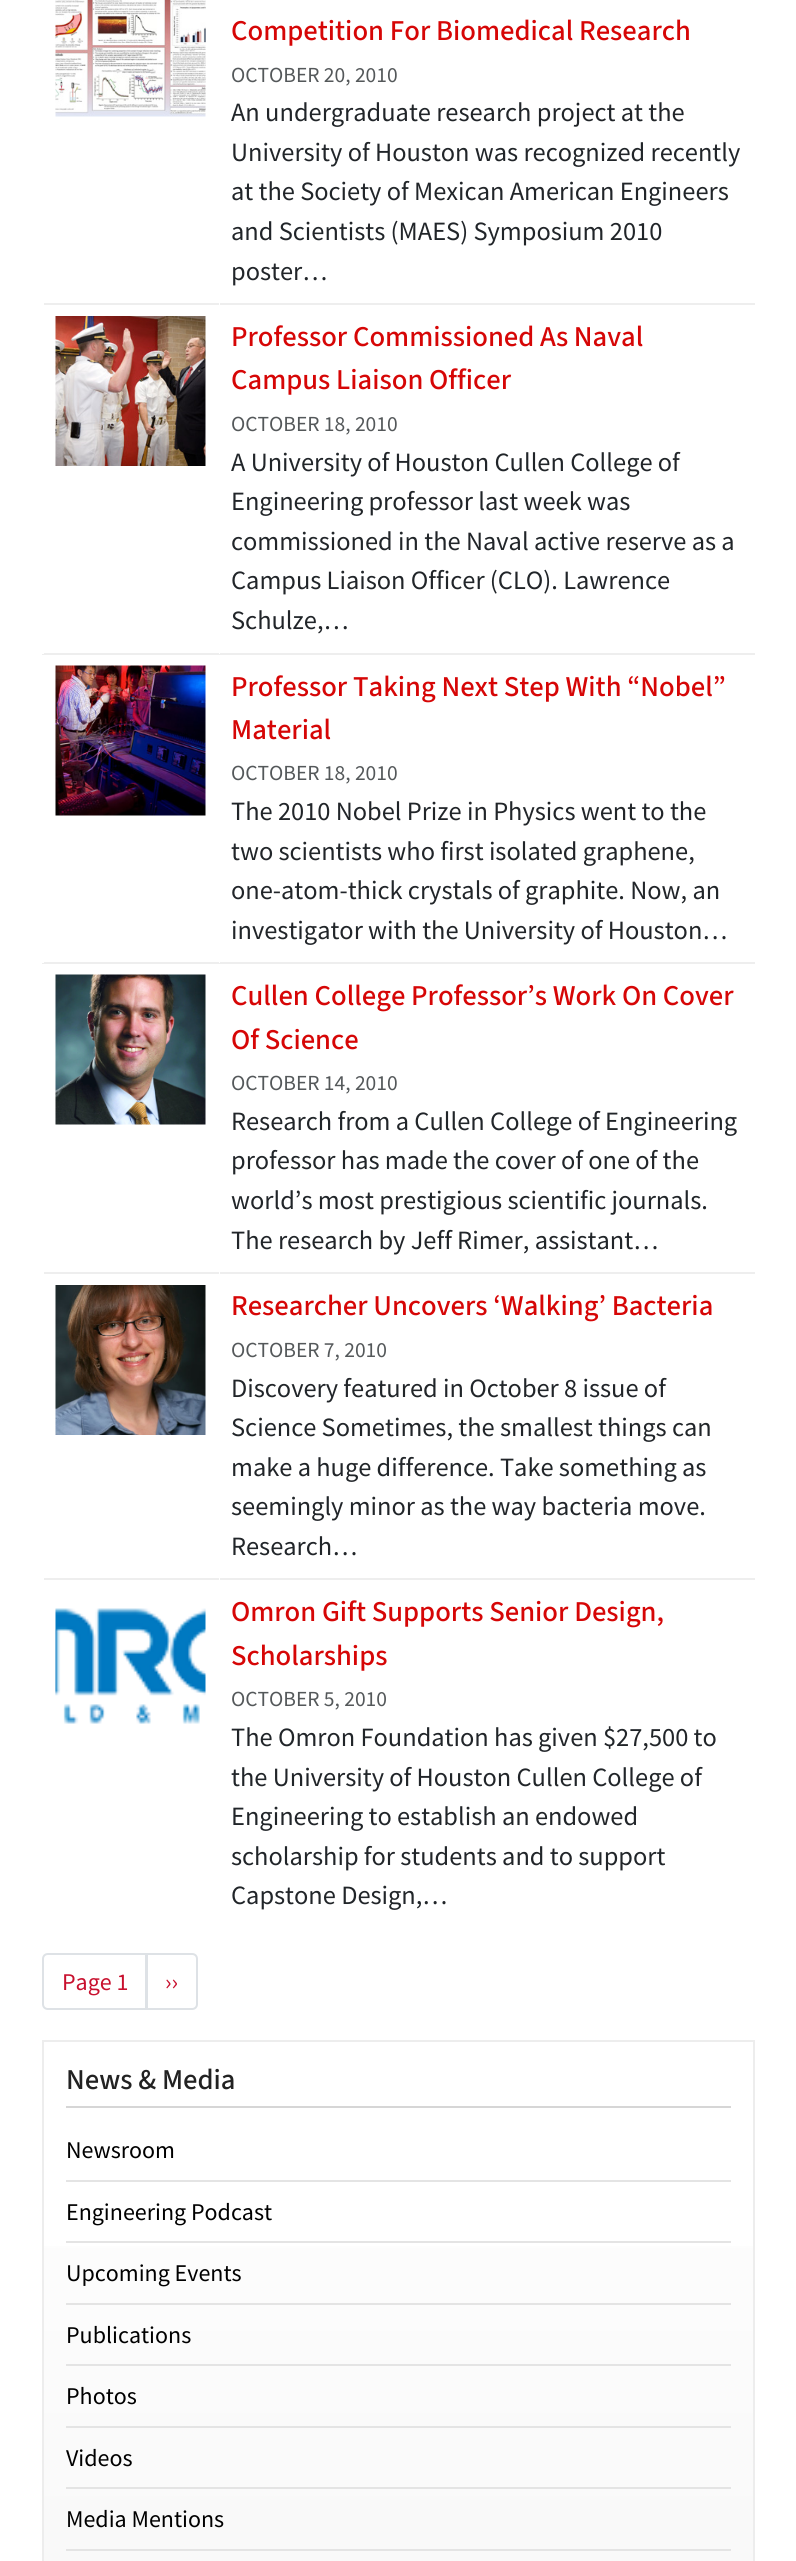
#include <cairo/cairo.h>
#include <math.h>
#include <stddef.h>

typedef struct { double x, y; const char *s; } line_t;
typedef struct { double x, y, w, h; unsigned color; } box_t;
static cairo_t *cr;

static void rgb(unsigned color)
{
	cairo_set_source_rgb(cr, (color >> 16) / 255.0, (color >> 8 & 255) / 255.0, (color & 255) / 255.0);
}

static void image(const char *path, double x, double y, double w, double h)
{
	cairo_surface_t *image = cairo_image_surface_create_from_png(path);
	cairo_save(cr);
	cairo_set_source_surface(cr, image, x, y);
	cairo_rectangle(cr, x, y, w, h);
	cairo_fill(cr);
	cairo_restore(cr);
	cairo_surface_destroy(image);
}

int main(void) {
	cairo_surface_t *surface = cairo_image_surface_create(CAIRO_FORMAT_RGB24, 796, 2561);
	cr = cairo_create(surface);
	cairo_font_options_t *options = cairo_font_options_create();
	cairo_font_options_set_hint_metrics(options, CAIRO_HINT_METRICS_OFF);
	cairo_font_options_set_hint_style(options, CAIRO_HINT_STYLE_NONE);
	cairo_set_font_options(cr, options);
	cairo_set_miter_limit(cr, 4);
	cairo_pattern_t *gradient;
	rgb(0xffffff);
	cairo_paint(cr);
	{
		static const box_t items[] = {
			{218, 303, 537, 2, 0xeeeeee},
			{218, 303, 2, 2, 0xffffff},
			{42, 303, 177, 2, 0xeeeeee},
			{42, 303, 2, 2, 0xffffff},
		};
		for (size_t i = 0; i < sizeof items / sizeof *items; i++) {
			rgb(items[i].color);
			cairo_rectangle(cr, items[i].x, items[i].y, items[i].w, items[i].h);
			cairo_fill(cr);
		}
	}
	image("img/1.png", 55, 0, 151, 117);
	{
		static const box_t items[] = {
			{218, 653, 537, 2, 0xeeeeee},
			{218, 653, 2, 1, 0xffffff},
			{42, 653, 177, 2, 0xeeeeee},
			{42, 653, 2, 1, 0xffffff},
		};
		for (size_t i = 0; i < sizeof items / sizeof *items; i++) {
			rgb(items[i].color);
			cairo_rectangle(cr, items[i].x, items[i].y, items[i].w, items[i].h);
			cairo_fill(cr);
		}
	}
	image("img/2.png", 55, 316, 151, 150);
	{
		static const box_t items[] = {
			{218, 962, 537, 2, 0xeeeeee},
			{218, 962, 2, 1, 0xffffff},
			{42, 962, 177, 2, 0xeeeeee},
			{42, 962, 2, 1, 0xffffff},
		};
		for (size_t i = 0; i < sizeof items / sizeof *items; i++) {
			rgb(items[i].color);
			cairo_rectangle(cr, items[i].x, items[i].y, items[i].w, items[i].h);
			cairo_fill(cr);
		}
	}
	image("img/3.png", 55, 665, 151, 151);
	{
		static const box_t items[] = {
			{218, 1272, 537, 2, 0xeeeeee},
			{218, 1272, 2, 2, 0xffffff},
			{42, 1272, 177, 2, 0xeeeeee},
			{42, 1272, 2, 2, 0xffffff},
		};
		for (size_t i = 0; i < sizeof items / sizeof *items; i++) {
			rgb(items[i].color);
			cairo_rectangle(cr, items[i].x, items[i].y, items[i].w, items[i].h);
			cairo_fill(cr);
		}
	}
	image("img/4.png", 55, 974, 151, 151);
	{
		static const box_t items[] = {
			{218, 1578, 537, 2, 0xeeeeee},
			{218, 1578, 2, 2, 0xffffff},
			{42, 1578, 177, 2, 0xeeeeee},
			{42, 1578, 2, 2, 0xffffff},
		};
		for (size_t i = 0; i < sizeof items / sizeof *items; i++) {
			rgb(items[i].color);
			cairo_rectangle(cr, items[i].x, items[i].y, items[i].w, items[i].h);
			cairo_fill(cr);
		}
	}
	image("img/5.png", 55, 1285, 151, 150);
	image("img/6.png", 55, 1608, 151, 116);
	cairo_new_path(cr);
	cairo_move_to(cr, 48, 1954);
	cairo_line_to(cr, 146, 1954);
	cairo_line_to(cr, 146, 2009);
	cairo_line_to(cr, 48, 2009);
	cairo_curve_to(cr, 45, 2009, 43, 2007, 43, 2004);
	cairo_line_to(cr, 43, 1959);
	cairo_curve_to(cr, 43, 1956, 45, 1954, 48, 1954);
	cairo_close_path(cr);
	rgb(0xdee2e6);
	cairo_stroke(cr);
	rgb(0xffffff);
	cairo_new_path(cr);
	cairo_move_to(cr, 147, 1954);
	cairo_line_to(cr, 192, 1954);
	cairo_curve_to(cr, 195, 1954, 197, 1956, 197, 1959);
	cairo_line_to(cr, 197, 2004);
	cairo_curve_to(cr, 197, 2007, 195, 2009, 192, 2009);
	cairo_line_to(cr, 147, 2009);
	cairo_close_path(cr);
	cairo_fill_preserve(cr);
	rgb(0xdee2e6);
	cairo_stroke(cr);
	gradient = cairo_pattern_create_linear(398, 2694, 398, 2042);
	cairo_pattern_add_color_stop_rgba(gradient, 0, 0.969, 0.969, 0.969, 1);
	cairo_pattern_add_color_stop_rgba(gradient, 1, 1, 1, 1, 1);
	cairo_set_source(cr, gradient);
	cairo_pattern_destroy(gradient);
	cairo_rectangle(cr, 44, 2246, 709, 315);
	cairo_fill(cr);
	cairo_rectangle(cr, 43, 2041, 711, 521);
	rgb(0xededed);
	cairo_stroke(cr);
	{
		static const box_t items[] = {
			{66, 2106, 665, 2, 0xd6d6d6},
			{66, 2180, 665, 2, 0xe4e4e4},
			{66, 2241, 665, 2, 0xe4e4e4},
			{66, 2303, 665, 2, 0xe4e4e4},
			{66, 2364, 665, 2, 0xe4e4e4},
			{66, 2426, 665, 2, 0xe4e4e4},
			{66, 2487, 665, 2, 0xe4e4e4},
			{66, 2549, 665, 2, 0xe4e4e4},
		};
		for (size_t i = 0; i < sizeof items / sizeof *items; i++) {
			rgb(items[i].color);
			cairo_rectangle(cr, items[i].x, items[i].y, items[i].w, items[i].h);
			cairo_fill(cr);
		}
	}
	cairo_select_font_face(cr, "Source Sans 3 Medium", CAIRO_FONT_SLANT_NORMAL, CAIRO_FONT_WEIGHT_NORMAL);
	cairo_set_font_size(cr, 28.75);
	rgb(0xd60606);
	cairo_move_to(cr, 231, 40);
	cairo_show_text(cr, "Competition For Biomedical Research");
	cairo_select_font_face(cr, "Source Sans Pro", CAIRO_FONT_SLANT_NORMAL, CAIRO_FONT_WEIGHT_NORMAL);
	cairo_set_font_size(cr, 21.5);
	rgb(0x54585a);
	cairo_move_to(cr, 231, 82);
	cairo_show_text(cr, "OCTOBER 20, 2010");
	cairo_set_font_size(cr, 26.4);
	rgb(0x212529);
	{
		static const line_t items[] = {
			{231, 121, "An undergraduate research project at the"},
			{231, 161, "University of Houston was recognized recently"},
			{231, 200, "at the Society of Mexican American Engineers"},
			{231, 240, "and Scientists (MAES) Symposium 2010"},
			{231, 280, "poster…"},
		};
		for (size_t i = 0; i < sizeof items / sizeof *items; i++) {
			cairo_move_to(cr, items[i].x, items[i].y);
			cairo_show_text(cr, items[i].s);
		}
	}
	cairo_select_font_face(cr, "Source Sans 3 Medium", CAIRO_FONT_SLANT_NORMAL, CAIRO_FONT_WEIGHT_NORMAL);
	cairo_set_font_size(cr, 28.75);
	rgb(0xd60606);
	cairo_move_to(cr, 231, 346);
	cairo_show_text(cr, "Professor Commissioned As Naval");
	cairo_move_to(cr, 231, 389);
	cairo_show_text(cr, "Campus Liaison Officer");
	cairo_select_font_face(cr, "Source Sans Pro", CAIRO_FONT_SLANT_NORMAL, CAIRO_FONT_WEIGHT_NORMAL);
	cairo_set_font_size(cr, 21.5);
	rgb(0x54585a);
	cairo_move_to(cr, 231, 431);
	cairo_show_text(cr, "OCTOBER 18, 2010");
	cairo_set_font_size(cr, 26.4);
	rgb(0x212529);
	{
		static const line_t items[] = {
			{231, 471, "A University of Houston Cullen College of"},
			{231, 510, "Engineering professor last week was"},
			{231, 550, "commissioned in the Naval active reserve as a"},
			{231, 589, "Campus Liaison Officer (CLO). Lawrence"},
			{231, 629, "Schulze,…"},
		};
		for (size_t i = 0; i < sizeof items / sizeof *items; i++) {
			cairo_move_to(cr, items[i].x, items[i].y);
			cairo_show_text(cr, items[i].s);
		}
	}
	cairo_select_font_face(cr, "Source Sans 3 Medium", CAIRO_FONT_SLANT_NORMAL, CAIRO_FONT_WEIGHT_NORMAL);
	cairo_set_font_size(cr, 28.75);
	rgb(0xd60606);
	cairo_move_to(cr, 231, 696);
	cairo_show_text(cr, "Professor Taking Next Step With “Nobel”");
	cairo_move_to(cr, 231, 739);
	cairo_show_text(cr, "Material");
	cairo_select_font_face(cr, "Source Sans Pro", CAIRO_FONT_SLANT_NORMAL, CAIRO_FONT_WEIGHT_NORMAL);
	cairo_set_font_size(cr, 21.5);
	rgb(0x54585a);
	cairo_move_to(cr, 231, 780);
	cairo_show_text(cr, "OCTOBER 18, 2010");
	cairo_set_font_size(cr, 26.4);
	rgb(0x212529);
	{
		static const line_t items[] = {
			{231, 820, "The 2010 Nobel Prize in Physics went to the"},
			{231, 860, "two scientists who first isolated graphene,"},
			{231, 899, "one-atom-thick crystals of graphite. Now, an"},
			{231, 939, "investigator with the University of Houston…"},
		};
		for (size_t i = 0; i < sizeof items / sizeof *items; i++) {
			cairo_move_to(cr, items[i].x, items[i].y);
			cairo_show_text(cr, items[i].s);
		}
	}
	cairo_select_font_face(cr, "Source Sans 3 Medium", CAIRO_FONT_SLANT_NORMAL, CAIRO_FONT_WEIGHT_NORMAL);
	cairo_set_font_size(cr, 28.75);
	rgb(0xd60606);
	cairo_move_to(cr, 231, 1005);
	cairo_show_text(cr, "Cullen College Professor’s Work On Cover");
	cairo_move_to(cr, 231, 1049);
	cairo_show_text(cr, "Of Science");
	cairo_select_font_face(cr, "Source Sans Pro", CAIRO_FONT_SLANT_NORMAL, CAIRO_FONT_WEIGHT_NORMAL);
	cairo_set_font_size(cr, 21.5);
	rgb(0x54585a);
	cairo_move_to(cr, 231, 1090);
	cairo_show_text(cr, "OCTOBER 14, 2010");
	cairo_set_font_size(cr, 26.4);
	rgb(0x212529);
	{
		static const line_t items[] = {
			{231, 1130, "Research from a Cullen College of Engineering"},
			{231, 1169, "professor has made the cover of one of the"},
			{231, 1209, "world’s most prestigious scientific journals."},
			{231, 1249, "The research by Jeff Rimer, assistant…"},
		};
		for (size_t i = 0; i < sizeof items / sizeof *items; i++) {
			cairo_move_to(cr, items[i].x, items[i].y);
			cairo_show_text(cr, items[i].s);
		}
	}
	cairo_select_font_face(cr, "Source Sans 3 Medium", CAIRO_FONT_SLANT_NORMAL, CAIRO_FONT_WEIGHT_NORMAL);
	cairo_set_font_size(cr, 28.75);
	rgb(0xd60606);
	cairo_move_to(cr, 231, 1315);
	cairo_show_text(cr, "Researcher Uncovers ‘Walking’ Bacteria");
	cairo_select_font_face(cr, "Source Sans Pro", CAIRO_FONT_SLANT_NORMAL, CAIRO_FONT_WEIGHT_NORMAL);
	cairo_set_font_size(cr, 21.5);
	rgb(0x54585a);
	cairo_move_to(cr, 231, 1357);
	cairo_show_text(cr, "OCTOBER 7, 2010");
	cairo_set_font_size(cr, 26.4);
	rgb(0x212529);
	{
		static const line_t items[] = {
			{231, 1397, "Discovery featured in October 8 issue of"},
			{231, 1436, "Science Sometimes, the smallest things can"},
			{231, 1476, "make a huge difference. Take something as"},
			{231, 1515, "seemingly minor as the way bacteria move."},
			{231, 1555, "Research…"},
		};
		for (size_t i = 0; i < sizeof items / sizeof *items; i++) {
			cairo_move_to(cr, items[i].x, items[i].y);
			cairo_show_text(cr, items[i].s);
		}
	}
	cairo_select_font_face(cr, "Source Sans 3 Medium", CAIRO_FONT_SLANT_NORMAL, CAIRO_FONT_WEIGHT_NORMAL);
	cairo_set_font_size(cr, 28.75);
	rgb(0xd60606);
	cairo_move_to(cr, 231, 1621);
	cairo_show_text(cr, "Omron Gift Supports Senior Design,");
	cairo_move_to(cr, 231, 1665);
	cairo_show_text(cr, "Scholarships");
	cairo_select_font_face(cr, "Source Sans Pro", CAIRO_FONT_SLANT_NORMAL, CAIRO_FONT_WEIGHT_NORMAL);
	cairo_set_font_size(cr, 21.5);
	rgb(0x54585a);
	cairo_move_to(cr, 231, 1706);
	cairo_show_text(cr, "OCTOBER 5, 2010");
	cairo_set_font_size(cr, 26.4);
	rgb(0x212529);
	{
		static const line_t items[] = {
			{231, 1746, "The Omron Foundation has given $27,500 to"},
			{231, 1786, "the University of Houston Cullen College of"},
			{231, 1825, "Engineering to establish an endowed"},
			{231, 1865, "scholarship for students and to support"},
			{231, 1904, "Capstone Design,…"},
		};
		for (size_t i = 0; i < sizeof items / sizeof *items; i++) {
			cairo_move_to(cr, items[i].x, items[i].y);
			cairo_show_text(cr, items[i].s);
		}
	}
	cairo_set_font_size(cr, 24);
	rgb(0xc8102e);
	cairo_move_to(cr, 62, 1990);
	cairo_show_text(cr, "Page 1");
	cairo_move_to(cr, 165, 1990);
	cairo_show_text(cr, "››");
	cairo_select_font_face(cr, "Source Sans 3 Medium", CAIRO_FONT_SLANT_NORMAL, CAIRO_FONT_WEIGHT_NORMAL);
	cairo_set_font_size(cr, 28.75);
	rgb(0x222222);
	cairo_move_to(cr, 66, 2089);
	cairo_show_text(cr, "News & Media");
	cairo_select_font_face(cr, "Source Sans Pro", CAIRO_FONT_SLANT_NORMAL, CAIRO_FONT_WEIGHT_NORMAL);
	cairo_set_font_size(cr, 24);
	rgb(0x000000);
	{
		static const line_t items[] = {
			{66, 2158, "Newsroom"},
			{66, 2220, "Engineering Podcast"},
			{66, 2281, "Upcoming Events"},
			{66, 2343, "Publications"},
			{66, 2404, "Photos"},
			{66, 2466, "Videos"},
			{66, 2527, "Media Mentions"},
		};
		for (size_t i = 0; i < sizeof items / sizeof *items; i++) {
			cairo_move_to(cr, items[i].x, items[i].y);
			cairo_show_text(cr, items[i].s);
		}
	}
	cairo_surface_write_to_png(surface, "page.png");
	cairo_font_options_destroy(options);
	cairo_destroy(cr);
	cairo_surface_destroy(surface);
	return 0;
}
